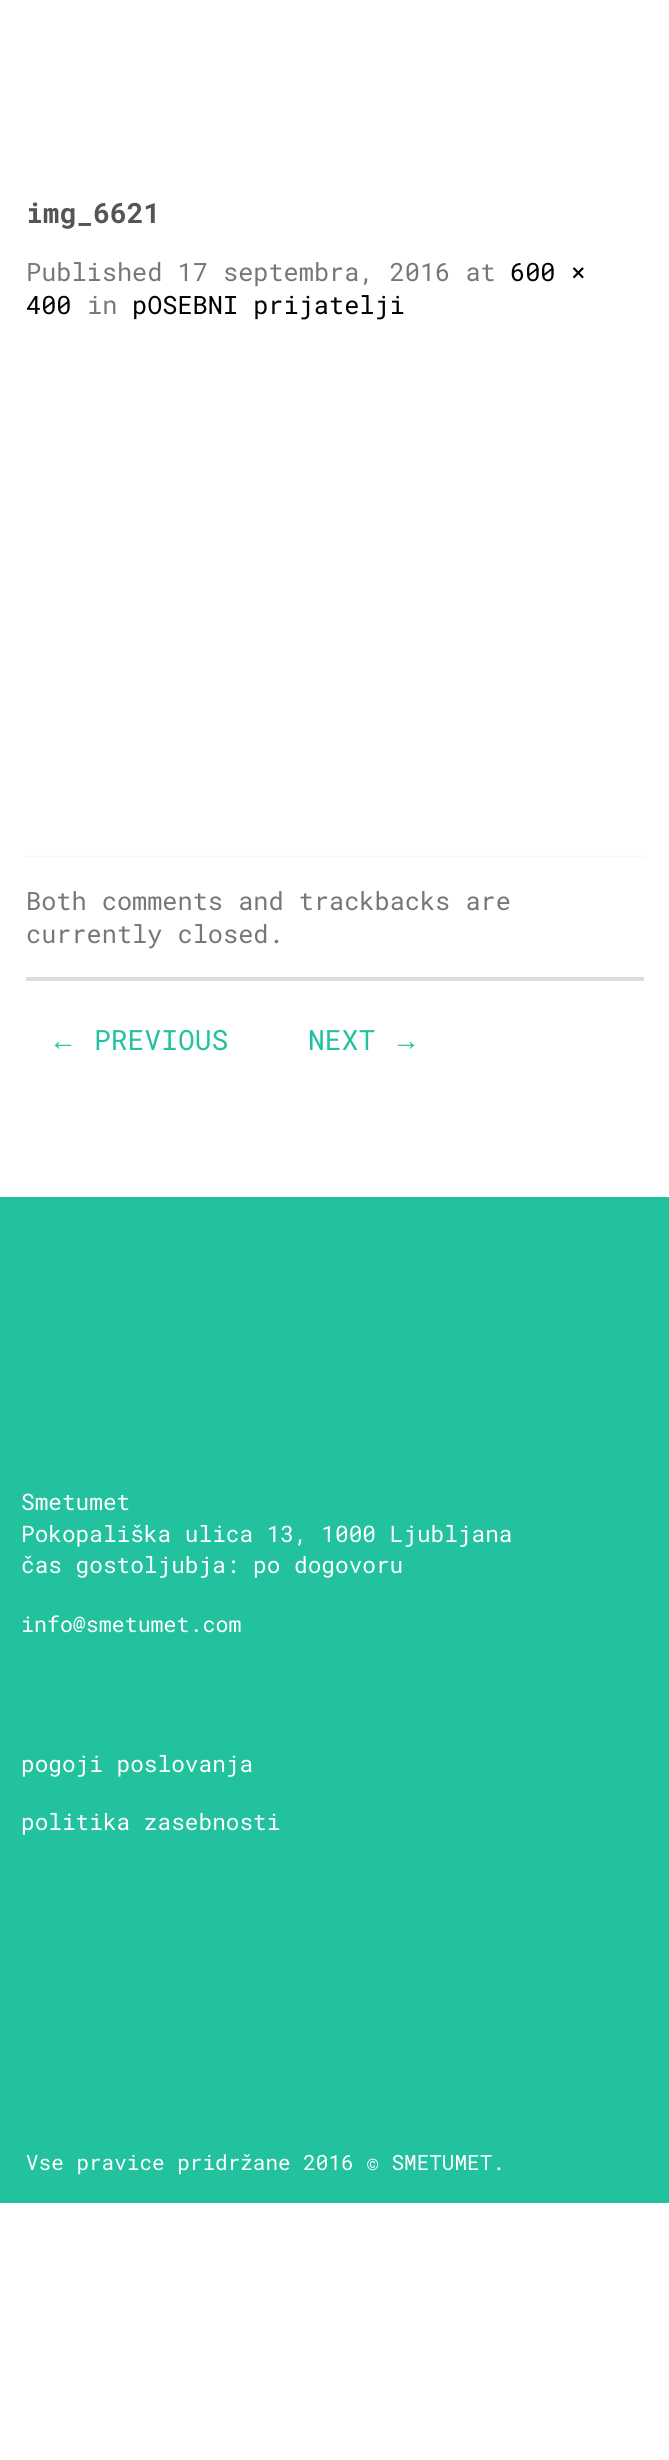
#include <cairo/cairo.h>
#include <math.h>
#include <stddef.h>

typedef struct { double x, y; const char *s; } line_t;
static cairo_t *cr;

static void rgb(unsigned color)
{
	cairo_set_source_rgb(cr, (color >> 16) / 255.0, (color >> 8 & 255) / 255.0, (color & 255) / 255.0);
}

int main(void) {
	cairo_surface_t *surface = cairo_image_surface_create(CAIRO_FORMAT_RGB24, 669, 2460);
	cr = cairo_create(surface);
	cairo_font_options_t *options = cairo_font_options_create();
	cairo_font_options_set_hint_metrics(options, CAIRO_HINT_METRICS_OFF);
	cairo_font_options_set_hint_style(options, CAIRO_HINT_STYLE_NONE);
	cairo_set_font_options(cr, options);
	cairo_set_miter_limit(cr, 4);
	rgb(0xffffff);
	cairo_paint(cr);
	cairo_new_path(cr);
	cairo_move_to(cr, 26, 856.5);
	cairo_line_to(cr, 644, 856.5);
	rgb(0xeeeeee);
	cairo_set_line_width(cr, 1.8);
	cairo_set_dash(cr, (double[]){1.75, 1.75}, 2, 0);
	cairo_stroke(cr);
	rgb(0xdddddd);
	cairo_rectangle(cr, 26, 977, 618, 4);
	cairo_fill(cr);
	rgb(0x22c29e);
	cairo_rectangle(cr, 0, 1197, 669, 1006);
	cairo_fill(cr);
	cairo_select_font_face(cr, "Roboto Mono", CAIRO_FONT_SLANT_NORMAL, CAIRO_FONT_WEIGHT_BOLD);
	cairo_set_font_size(cr, 28);
	rgb(0x555555);
	cairo_move_to(cr, 26, 223);
	cairo_show_text(cr, "img_6621");
	cairo_select_font_face(cr, "Roboto Mono", CAIRO_FONT_SLANT_NORMAL, CAIRO_FONT_WEIGHT_NORMAL);
	cairo_set_font_size(cr, 25.25);
	rgb(0x777777);
	cairo_move_to(cr, 26, 281);
	cairo_show_text(cr, "Published 17 septembra, 2016 at");
	rgb(0x000000);
	cairo_move_to(cr, 510, 281);
	cairo_show_text(cr, "600 ×");
	cairo_move_to(cr, 26, 314);
	cairo_show_text(cr, "400");
	rgb(0x777777);
	cairo_move_to(cr, 87, 314);
	cairo_show_text(cr, "in");
	rgb(0x000000);
	cairo_move_to(cr, 132, 314);
	cairo_show_text(cr, "pOSEBNI prijatelji");
	rgb(0x777777);
	cairo_move_to(cr, 26, 910);
	cairo_show_text(cr, "Both comments and trackbacks are");
	cairo_move_to(cr, 26, 943);
	cairo_show_text(cr, "currently closed.");
	cairo_select_font_face(cr, "Liberation Sans", CAIRO_FONT_SLANT_NORMAL, CAIRO_FONT_WEIGHT_NORMAL);
	cairo_set_font_size(cr, 28);
	rgb(0x22c29e);
	cairo_move_to(cr, 49, 1050);
	cairo_show_text(cr, "←");
	cairo_select_font_face(cr, "Roboto Mono", CAIRO_FONT_SLANT_NORMAL, CAIRO_FONT_WEIGHT_NORMAL);
	cairo_move_to(cr, 94, 1050);
	cairo_show_text(cr, "PREVIOUS");
	cairo_move_to(cr, 308, 1050);
	cairo_show_text(cr, "NEXT");
	cairo_select_font_face(cr, "Liberation Sans", CAIRO_FONT_SLANT_NORMAL, CAIRO_FONT_WEIGHT_NORMAL);
	cairo_move_to(cr, 392, 1050);
	cairo_show_text(cr, "→");
	cairo_select_font_face(cr, "Roboto Mono", CAIRO_FONT_SLANT_NORMAL, CAIRO_FONT_WEIGHT_NORMAL);
	cairo_set_font_size(cr, 22.75);
	rgb(0xffffff);
	{
		static const line_t items[] = {
			{21, 1510, "Smetumet"},
			{21, 1542, "Pokopališka ulica 13, 1000 Ljubljana"},
			{21, 1573, "čas gostoljubja: po dogovoru"},
		};
		for (size_t i = 0; i < sizeof items / sizeof *items; i++) {
			cairo_move_to(cr, items[i].x, items[i].y);
			cairo_show_text(cr, items[i].s);
		}
	}
	cairo_set_font_size(cr, 21.6);
	cairo_move_to(cr, 21, 1632);
	cairo_show_text(cr, "info@smetumet.com");
	cairo_set_font_size(cr, 22.75);
	cairo_move_to(cr, 21, 1772);
	cairo_show_text(cr, "pogoji poslovanja");
	cairo_move_to(cr, 21, 1830);
	cairo_show_text(cr, "politika zasebnosti");
	cairo_set_font_size(cr, 21);
	cairo_move_to(cr, 26, 2170);
	cairo_show_text(cr, "Vse pravice pridržane 2016 © SMETUMET.");
	cairo_surface_write_to_png(surface, "page.png");
	cairo_font_options_destroy(options);
	cairo_destroy(cr);
	cairo_surface_destroy(surface);
	return 0;
}
